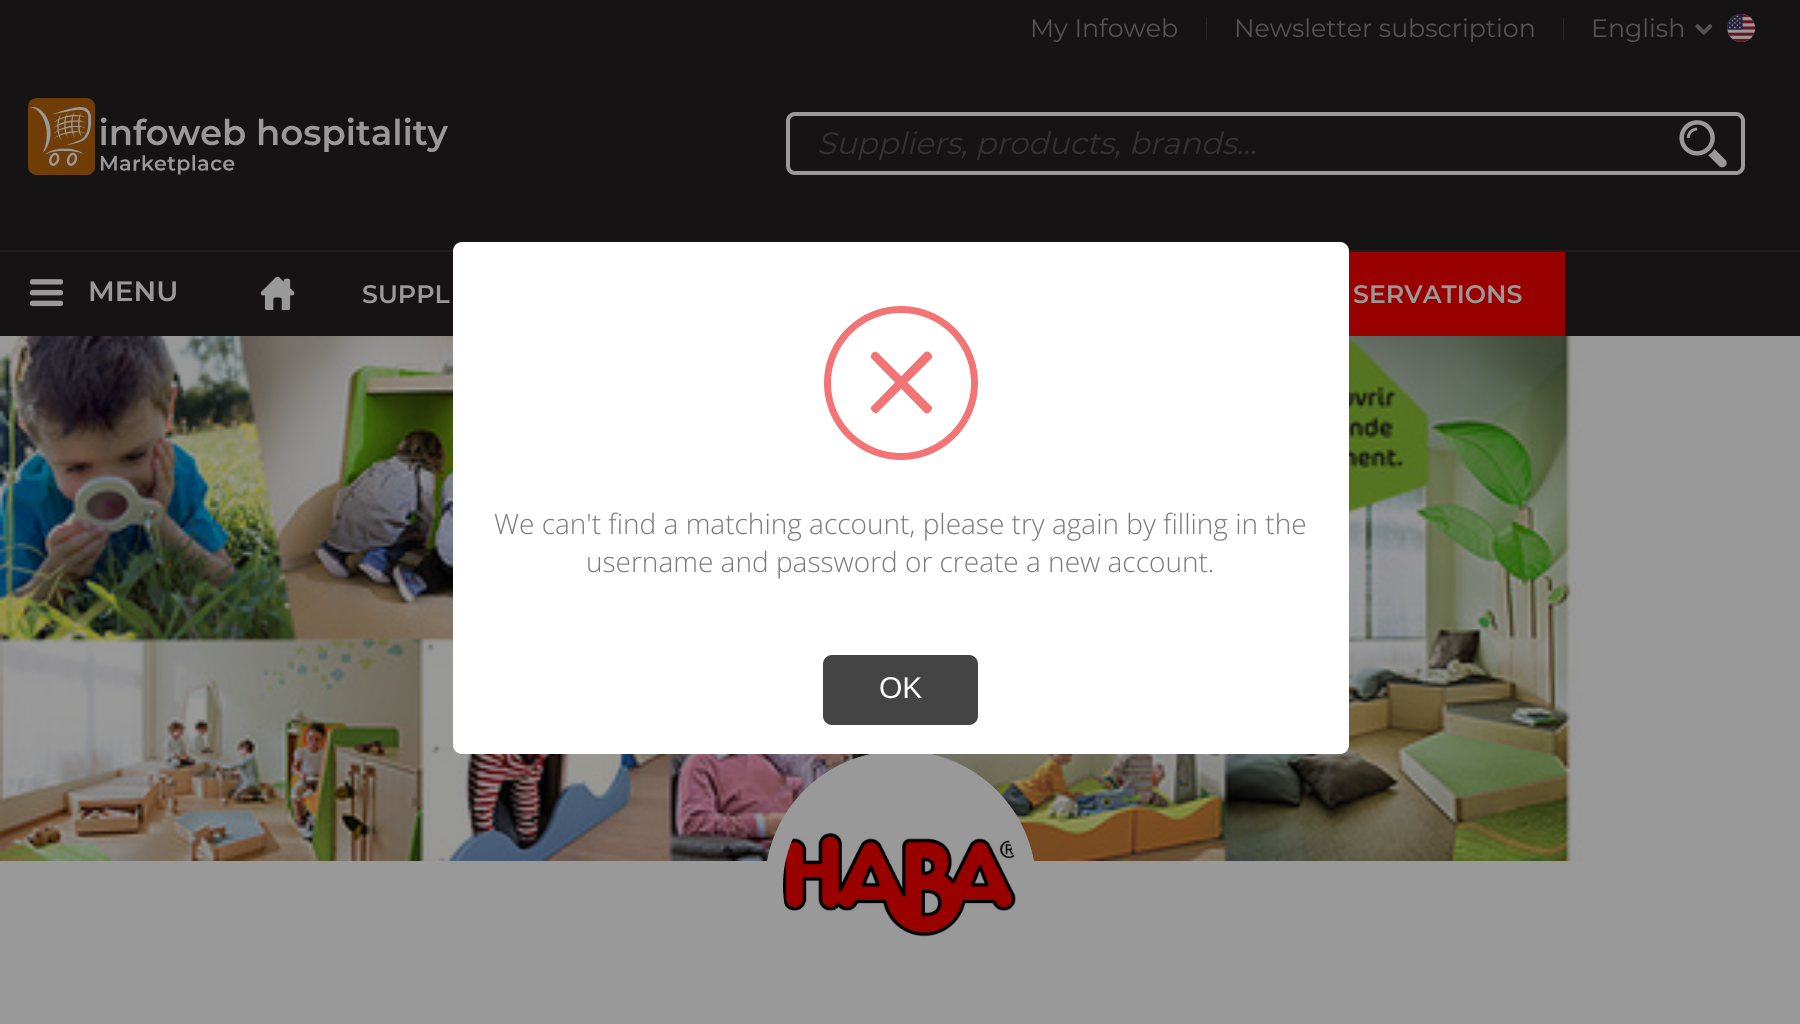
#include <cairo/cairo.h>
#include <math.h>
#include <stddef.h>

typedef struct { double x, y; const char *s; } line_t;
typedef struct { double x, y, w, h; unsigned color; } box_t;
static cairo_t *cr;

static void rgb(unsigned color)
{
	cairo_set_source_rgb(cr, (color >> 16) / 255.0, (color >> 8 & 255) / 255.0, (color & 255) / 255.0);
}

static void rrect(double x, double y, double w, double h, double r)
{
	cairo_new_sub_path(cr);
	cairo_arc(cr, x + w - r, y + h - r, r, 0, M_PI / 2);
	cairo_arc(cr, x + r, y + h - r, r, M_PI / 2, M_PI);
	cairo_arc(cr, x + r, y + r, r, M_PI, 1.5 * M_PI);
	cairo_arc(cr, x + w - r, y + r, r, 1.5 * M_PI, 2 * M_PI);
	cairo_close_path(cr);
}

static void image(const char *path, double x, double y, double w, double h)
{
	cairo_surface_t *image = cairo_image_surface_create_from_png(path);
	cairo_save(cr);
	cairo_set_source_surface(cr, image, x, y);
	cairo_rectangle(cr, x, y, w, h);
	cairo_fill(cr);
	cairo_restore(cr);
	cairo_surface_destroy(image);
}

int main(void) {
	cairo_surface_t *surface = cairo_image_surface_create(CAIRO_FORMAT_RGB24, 1800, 1024);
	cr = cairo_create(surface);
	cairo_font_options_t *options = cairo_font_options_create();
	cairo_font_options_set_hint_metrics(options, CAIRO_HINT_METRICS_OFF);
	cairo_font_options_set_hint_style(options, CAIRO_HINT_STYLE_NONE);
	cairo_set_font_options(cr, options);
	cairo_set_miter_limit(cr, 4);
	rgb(0x999999);
	cairo_paint(cr);
	{
		static const box_t items[] = {
			{0, 0, 1800, 250, 0x151313},
			{0, 250, 1800, 2, 0x1e1e1e},
			{1206, 18, 1, 22, 0x292929},
			{1563, 18, 1, 22, 0x292929},
		};
		for (size_t i = 0; i < sizeof items / sizeof *items; i++) {
			rgb(items[i].color);
			cairo_rectangle(cr, items[i].x, items[i].y, items[i].w, items[i].h);
			cairo_fill(cr);
		}
	}
	image("img/1.png", 1727, 14, 28, 28);
	image("img/2.png", 1695, 24, 18, 11);
	image("img/3.png", 28, 98, 420, 77);
	rrect(788, 114, 955, 59, 7);
	rgb(0x999999);
	cairo_set_line_width(cr, 4);
	cairo_stroke(cr);
	image("img/4.png", 1679, 120, 48, 48);
	rgb(0x151313);
	cairo_rectangle(cr, 0, 252, 1800, 84);
	cairo_fill(cr);
	image("img/5.png", 30, 279, 33, 28);
	image("img/6.png", 261, 277, 34, 34);
	rgb(0x990000);
	cairo_rectangle(cr, 1349, 252, 216, 84);
	cairo_fill(cr);
	image("img/7.png", 0, 336, 1584, 525);
	rgb(0x999999);
	rrect(765, 751, 271, 269, 134.5);
	cairo_fill(cr);
	image("img/8.png", 783, 833, 235, 104);
	rrect(774, 760, 253, 251, 125.5);
	cairo_set_line_width(cr, 18);
	cairo_stroke(cr);
	rgb(0xffffff);
	rrect(453, 242, 896, 512, 9);
	cairo_fill(cr);
	cairo_arc(cr, 901, 383, 73.5, 0, 2 * M_PI);
	rgb(0xf27474);
	cairo_set_line_width(cr, 7);
	cairo_stroke(cr);
	cairo_new_path(cr);
	cairo_move_to(cr, 878, 353);
	cairo_line_to(cr, 932, 407);
	cairo_curve_to(cr, 933, 410, 928, 415, 925, 413);
	cairo_line_to(cr, 871, 358);
	cairo_line_to(cr, 871, 356);
	cairo_curve_to(cr, 871, 353, 875, 350, 878, 353);
	cairo_close_path(cr);
	cairo_fill(cr);
	cairo_new_path(cr);
	cairo_move_to(cr, 872, 406);
	cairo_line_to(cr, 925, 352);
	cairo_curve_to(cr, 928, 350, 933, 354, 932, 358);
	cairo_line_to(cr, 877, 413);
	cairo_line_to(cr, 875, 413);
	cairo_curve_to(cr, 872, 412, 869, 408, 872, 406);
	cairo_close_path(cr);
	cairo_fill(cr);
	rgb(0x444444);
	rrect(823, 655, 155, 70, 9);
	cairo_fill(cr);
	cairo_select_font_face(cr, "Montserrat", CAIRO_FONT_SLANT_NORMAL, CAIRO_FONT_WEIGHT_NORMAL);
	cairo_set_font_size(cr, 25.25);
	rgb(0x525252);
	{
		static const line_t items[] = {
			{1030, 37, "My Infoweb"},
			{1234, 37, "Newsletter subscription"},
			{1591, 37, "English"},
		};
		for (size_t i = 0; i < sizeof items / sizeof *items; i++) {
			cairo_move_to(cr, items[i].x, items[i].y);
			cairo_show_text(cr, items[i].s);
		}
	}
	cairo_select_font_face(cr, "Montserrat", CAIRO_FONT_SLANT_ITALIC, CAIRO_FONT_WEIGHT_NORMAL);
	cairo_set_font_size(cr, 30.75);
	rgb(0x323232);
	cairo_move_to(cr, 817, 154);
	cairo_show_text(cr, "Suppliers, products, brands...");
	cairo_select_font_face(cr, "Montserrat SemiBold", CAIRO_FONT_SLANT_NORMAL, CAIRO_FONT_WEIGHT_NORMAL);
	cairo_set_font_size(cr, 28);
	rgb(0x999999);
	cairo_move_to(cr, 88, 301);
	cairo_show_text(cr, "MENU");
	cairo_set_font_size(cr, 25.25);
	cairo_move_to(cr, 362, 303);
	cairo_show_text(cr, "SUPPL");
	cairo_move_to(cr, 1353, 303);
	cairo_show_text(cr, "SERVATIONS");
	cairo_select_font_face(cr, "Open Sans Light", CAIRO_FONT_SLANT_NORMAL, CAIRO_FONT_WEIGHT_NORMAL);
	cairo_set_font_size(cr, 28);
	rgb(0x797979);
	cairo_move_to(cr, 494, 534);
	cairo_show_text(cr, "We can't find a matching account, please try again by filling in the");
	cairo_move_to(cr, 586, 572);
	cairo_show_text(cr, "username and password or create a new account.");
	cairo_select_font_face(cr, "Liberation Sans", CAIRO_FONT_SLANT_NORMAL, CAIRO_FONT_WEIGHT_NORMAL);
	cairo_set_font_size(cr, 30);
	rgb(0xffffff);
	cairo_move_to(cr, 879, 698);
	cairo_show_text(cr, "OK");
	cairo_surface_write_to_png(surface, "page.png");
	cairo_font_options_destroy(options);
	cairo_destroy(cr);
	cairo_surface_destroy(surface);
	return 0;
}
